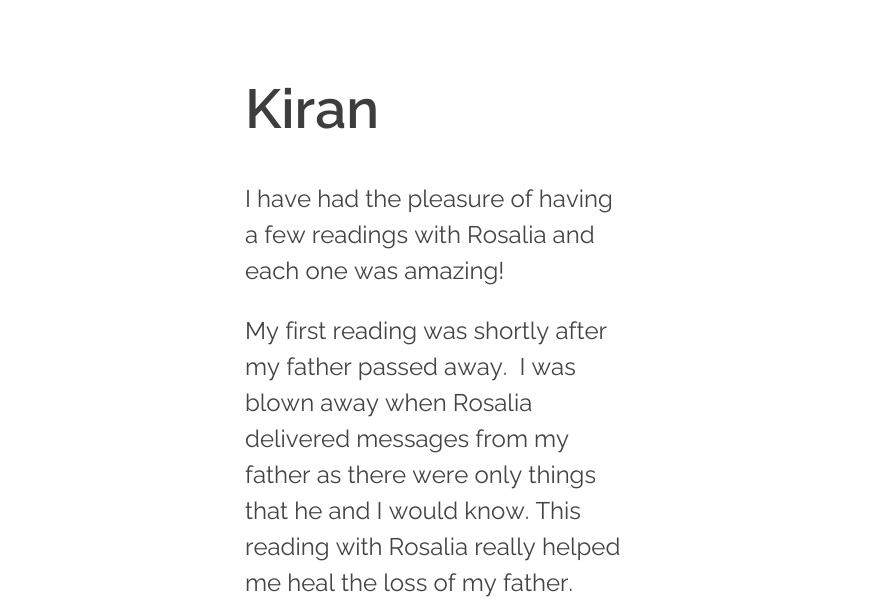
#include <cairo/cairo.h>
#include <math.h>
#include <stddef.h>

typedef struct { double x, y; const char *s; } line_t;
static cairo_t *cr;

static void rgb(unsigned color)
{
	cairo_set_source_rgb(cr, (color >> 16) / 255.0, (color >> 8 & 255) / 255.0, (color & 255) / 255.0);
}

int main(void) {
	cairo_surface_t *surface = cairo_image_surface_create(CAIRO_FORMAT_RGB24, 874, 614);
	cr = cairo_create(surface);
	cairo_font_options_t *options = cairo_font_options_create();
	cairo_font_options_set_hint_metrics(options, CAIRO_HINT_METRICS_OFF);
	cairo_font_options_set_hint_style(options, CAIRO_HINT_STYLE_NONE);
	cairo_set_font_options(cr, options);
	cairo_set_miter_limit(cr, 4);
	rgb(0xffffff);
	cairo_paint(cr);
	cairo_select_font_face(cr, "Raleway SemiBold", CAIRO_FONT_SLANT_NORMAL, CAIRO_FONT_WEIGHT_NORMAL);
	cairo_set_font_size(cr, 55);
	rgb(0x3d3d3d);
	cairo_move_to(cr, 245, 128);
	cairo_show_text(cr, "Kiran");
	cairo_select_font_face(cr, "Raleway", CAIRO_FONT_SLANT_NORMAL, CAIRO_FONT_WEIGHT_NORMAL);
	cairo_set_font_size(cr, 24);
	rgb(0x444444);
	{
		static const line_t items[] = {
			{245, 207, "I have had the pleasure of having"},
			{245, 243, "a few readings with Rosalia and"},
			{245, 279, "each one was amazing!"},
			{245, 339, "My first reading was shortly after"},
			{245, 375, "my father passed away.  I was"},
			{245, 411, "blown away when Rosalia"},
			{245, 447, "delivered messages from my"},
			{245, 483, "father as there were only things"},
			{245, 519, "that he and I would know. This"},
			{245, 555, "reading with Rosalia really helped"},
			{245, 591, "me heal the loss of my father."},
		};
		for (size_t i = 0; i < sizeof items / sizeof *items; i++) {
			cairo_move_to(cr, items[i].x, items[i].y);
			cairo_show_text(cr, items[i].s);
		}
	}
	cairo_surface_write_to_png(surface, "page.png");
	cairo_font_options_destroy(options);
	cairo_destroy(cr);
	cairo_surface_destroy(surface);
	return 0;
}
